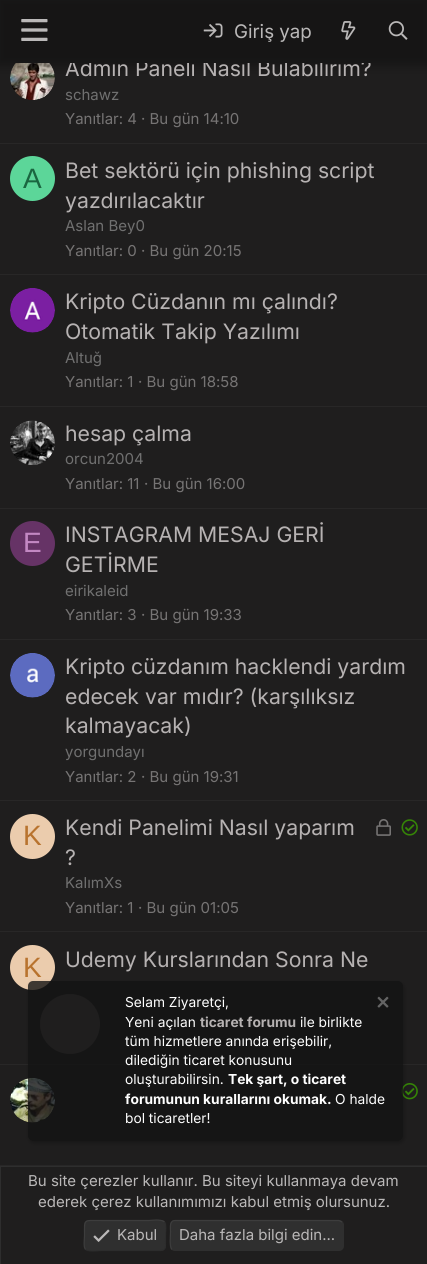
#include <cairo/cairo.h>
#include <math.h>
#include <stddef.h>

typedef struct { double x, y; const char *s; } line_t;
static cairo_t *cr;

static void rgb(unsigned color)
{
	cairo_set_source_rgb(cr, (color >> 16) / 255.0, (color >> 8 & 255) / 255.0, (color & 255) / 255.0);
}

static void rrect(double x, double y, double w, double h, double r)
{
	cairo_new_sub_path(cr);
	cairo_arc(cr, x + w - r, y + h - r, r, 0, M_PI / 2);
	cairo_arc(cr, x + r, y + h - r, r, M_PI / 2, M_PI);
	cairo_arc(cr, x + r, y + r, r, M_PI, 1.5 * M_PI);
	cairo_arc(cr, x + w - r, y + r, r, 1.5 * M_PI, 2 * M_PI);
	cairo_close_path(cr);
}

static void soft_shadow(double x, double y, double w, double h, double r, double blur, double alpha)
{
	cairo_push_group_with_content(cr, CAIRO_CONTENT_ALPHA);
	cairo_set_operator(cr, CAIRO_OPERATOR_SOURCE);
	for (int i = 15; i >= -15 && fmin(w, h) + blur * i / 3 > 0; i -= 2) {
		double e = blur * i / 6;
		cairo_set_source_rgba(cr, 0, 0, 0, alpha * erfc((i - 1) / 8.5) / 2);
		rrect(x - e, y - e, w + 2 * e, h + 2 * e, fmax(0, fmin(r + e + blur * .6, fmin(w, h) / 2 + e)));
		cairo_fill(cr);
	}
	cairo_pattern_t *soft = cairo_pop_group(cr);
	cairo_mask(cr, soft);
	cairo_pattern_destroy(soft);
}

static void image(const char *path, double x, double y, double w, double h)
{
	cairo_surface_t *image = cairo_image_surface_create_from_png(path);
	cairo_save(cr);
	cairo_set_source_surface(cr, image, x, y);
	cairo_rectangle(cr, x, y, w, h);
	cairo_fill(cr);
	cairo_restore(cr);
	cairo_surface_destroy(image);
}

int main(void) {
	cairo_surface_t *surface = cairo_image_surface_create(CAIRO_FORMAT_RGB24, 427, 1264);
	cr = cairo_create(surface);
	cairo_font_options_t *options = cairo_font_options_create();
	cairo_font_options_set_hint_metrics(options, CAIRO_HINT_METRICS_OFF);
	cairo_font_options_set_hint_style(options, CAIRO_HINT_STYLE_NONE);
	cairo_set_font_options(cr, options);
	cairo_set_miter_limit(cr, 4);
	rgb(0x1f1e1e);
	cairo_paint(cr);
	image("img/5.png", 10, 63, 45, 37);
	rgb(0x000000);
	soft_shadow(-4, -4, 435, 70, 0, 5, 0.3);
	image("img/1.png", 21, 19, 27, 22);
	image("img/2.png", 203, 23, 20, 15);
	image("img/3.png", 341, 21, 15, 19);
	image("img/4.png", 388, 21, 20, 19);
	rgb(0x282727);
	cairo_rectangle(cr, 0, 143, 427, 1);
	cairo_fill(cr);
	rgb(0x5cd699);
	cairo_arc(cr, 32.5, 178.5, 22.5, 0, 2 * M_PI);
	cairo_fill(cr);
	rgb(0x282727);
	cairo_rectangle(cr, 0, 274, 427, 1);
	cairo_fill(cr);
	image("img/6.png", 10, 288, 45, 45);
	cairo_rectangle(cr, 0, 406, 427, 1);
	cairo_fill(cr);
	image("img/7.png", 10, 420, 45, 45);
	cairo_rectangle(cr, 0, 508, 427, 1);
	cairo_fill(cr);
	rgb(0x663366);
	cairo_arc(cr, 32.5, 543.5, 22.5, 0, 2 * M_PI);
	cairo_fill(cr);
	rgb(0x282727);
	cairo_rectangle(cr, 0, 639, 427, 1);
	cairo_fill(cr);
	image("img/8.png", 10, 653, 45, 45);
	cairo_rectangle(cr, 0, 800, 427, 1);
	cairo_fill(cr);
	rgb(0xebccad);
	cairo_arc(cr, 32.5, 836.5, 22.5, 0, 2 * M_PI);
	cairo_fill(cr);
	image("img/9.png", 376, 819, 15, 17);
	image("img/10.png", 401, 819, 17, 17);
	rgb(0x282727);
	cairo_rectangle(cr, 0, 931, 427, 1);
	cairo_fill(cr);
	rgb(0xebccad);
	cairo_arc(cr, 32.5, 967.5, 22.5, 0, 2 * M_PI);
	cairo_fill(cr);
	rgb(0x282727);
	cairo_rectangle(cr, 0, 1064, 427, 1);
	cairo_fill(cr);
	image("img/11.png", 10, 1078, 45, 45);
	image("img/12.png", 401, 1083, 17, 17);
	cairo_rectangle(cr, 0, 1165, 427, 1);
	cairo_fill(cr);
	cairo_save(cr);
	cairo_set_fill_rule(cr, CAIRO_FILL_RULE_EVEN_ODD);
	cairo_new_path(cr);
	cairo_move_to(cr, 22, 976);
	cairo_line_to(cr, 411, 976);
	cairo_line_to(cr, 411, 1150);
	cairo_line_to(cr, 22, 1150);
	cairo_close_path(cr);
	cairo_move_to(cr, 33, 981);
	cairo_line_to(cr, 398, 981);
	cairo_curve_to(cr, 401, 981, 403, 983, 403, 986);
	cairo_line_to(cr, 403, 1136);
	cairo_curve_to(cr, 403, 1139, 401, 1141, 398, 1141);
	cairo_line_to(cr, 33, 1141);
	cairo_curve_to(cr, 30, 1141, 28, 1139, 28, 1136);
	cairo_line_to(cr, 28, 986);
	cairo_curve_to(cr, 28, 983, 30, 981, 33, 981);
	cairo_close_path(cr);
	cairo_clip(cr);
	rgb(0x000000);
	soft_shadow(29, 983, 375, 160, 5, 2, 0.25);
	cairo_restore(cr);
	cairo_set_source_rgba(cr, 0.078, 0.078, 0.078, 0.8);
	rrect(28, 981, 375, 160, 5);
	cairo_fill(cr);
	rgb(0x1f1e1e);
	cairo_arc(cr, 70, 1024, 30, 0, 2 * M_PI);
	cairo_fill(cr);
	image("img/13.png", 377, 996, 12, 12);
	cairo_rectangle(cr, 0.5, 1166.5, 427, 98);
	rgb(0x2e2e2e);
	cairo_set_line_width(cr, 1);
	cairo_stroke(cr);
	rgb(0x2f2f2f);
	rrect(84, 1220, 82, 31, 5);
	cairo_fill(cr);
	cairo_new_path(cr);
	cairo_move_to(cr, 164.5, 1222);
	cairo_curve_to(cr, 167, 1224.5, 165.5, 1232.5, 165.5, 1235.5);
	cairo_curve_to(cr, 165.5, 1252.5, 167, 1250.5, 149, 1250.5);
	cairo_line_to(cr, 101, 1250.5);
	cairo_curve_to(cr, 100.5, 1250.5, 89, 1252.5, 85.5, 1249.5);
	cairo_set_source_rgba(cr, 0.169, 0.169, 0.169, 0.65);
	cairo_set_line_width(cr, 1.2);
	cairo_stroke(cr);
	cairo_new_path(cr);
	cairo_move_to(cr, 85.5, 1249.5);
	cairo_curve_to(cr, 83, 1246.5, 84.5, 1239, 84.5, 1235.5);
	cairo_curve_to(cr, 84.5, 1218.5, 83, 1220.5, 101, 1220.5);
	cairo_line_to(cr, 149, 1220.5);
	cairo_curve_to(cr, 149.5, 1220.5, 161, 1218.5, 164.5, 1222);
	cairo_set_source_rgba(cr, 0.271, 0.271, 0.271, 0.65);
	cairo_stroke(cr);
	image("img/14.png", 93, 1229, 17, 13);
	rgb(0x2f2f2f);
	rrect(170, 1220, 174, 31, 5);
	cairo_fill(cr);
	cairo_new_path(cr);
	cairo_move_to(cr, 172, 1249.5);
	cairo_curve_to(cr, 169, 1246.5, 170.5, 1235.5, 170.5, 1232);
	cairo_curve_to(cr, 170.5, 1228.5, 169, 1220.5, 175, 1220.5);
	cairo_line_to(cr, 339, 1220.5);
	cairo_line_to(cr, 342, 1222);
	cairo_set_source_rgba(cr, 0.271, 0.271, 0.271, 0.65);
	cairo_stroke(cr);
	cairo_select_font_face(cr, "Inter", CAIRO_FONT_SLANT_NORMAL, CAIRO_FONT_WEIGHT_NORMAL);
	cairo_set_font_size(cr, 18.75);
	rgb(0xbab8b8);
	cairo_move_to(cr, 234, 38);
	cairo_show_text(cr, "Giriş yap");
	cairo_set_font_size(cr, 21.25);
	rgb(0xb6b2b2);
	cairo_move_to(cr, 65, 76);
	cairo_show_text(cr, "Admin Paneli Nasıl Bulabilirim?");
	rgb(0x171717);
	cairo_rectangle(cr, 70, 60, 301, 3);
	cairo_fill(cr);
	cairo_set_font_size(cr, 15);
	rgb(0x707070);
	cairo_move_to(cr, 65, 100);
	cairo_show_text(cr, "schawz");
	rgb(0x767474);
	cairo_move_to(cr, 65, 124);
	cairo_show_text(cr, "Yanıtlar: 4");
	cairo_move_to(cr, 141, 124);
	cairo_show_text(cr, "· Bu gün 14:10");
	cairo_select_font_face(cr, "Liberation Sans", CAIRO_FONT_SLANT_NORMAL, CAIRO_FONT_WEIGHT_NORMAL);
	cairo_set_font_size(cr, 28);
	rgb(0x1a6640);
	cairo_move_to(cr, 23, 188);
	cairo_show_text(cr, "A");
	cairo_select_font_face(cr, "Inter", CAIRO_FONT_SLANT_NORMAL, CAIRO_FONT_WEIGHT_NORMAL);
	cairo_set_font_size(cr, 21.25);
	rgb(0xb6b2b2);
	cairo_move_to(cr, 65, 178);
	cairo_show_text(cr, "Bet sektörü için phishing script");
	cairo_move_to(cr, 65, 208);
	cairo_show_text(cr, "yazdırılacaktır");
	cairo_set_font_size(cr, 15);
	rgb(0x707070);
	cairo_move_to(cr, 65, 231);
	cairo_show_text(cr, "Aslan Bey0");
	rgb(0x767474);
	cairo_move_to(cr, 65, 256);
	cairo_show_text(cr, "Yanıtlar: 0");
	cairo_move_to(cr, 141, 256);
	cairo_show_text(cr, "· Bu gün 20:15");
	cairo_set_font_size(cr, 21.25);
	rgb(0xb6b2b2);
	cairo_move_to(cr, 65, 309);
	cairo_show_text(cr, "Kripto Cüzdanın mı çalındı?");
	cairo_move_to(cr, 65, 339);
	cairo_show_text(cr, "Otomatik Takip Yazılımı");
	cairo_set_font_size(cr, 15);
	rgb(0x707070);
	cairo_move_to(cr, 65, 363);
	cairo_show_text(cr, "Altuğ");
	rgb(0x767474);
	cairo_move_to(cr, 65, 387);
	cairo_show_text(cr, "Yanıtlar: 1");
	cairo_move_to(cr, 138, 387);
	cairo_show_text(cr, "· Bu gün 18:58");
	cairo_set_font_size(cr, 21.25);
	rgb(0xb6b2b2);
	cairo_move_to(cr, 65, 441);
	cairo_show_text(cr, "hesap çalma");
	cairo_set_font_size(cr, 15);
	rgb(0x707070);
	cairo_move_to(cr, 65, 464);
	cairo_show_text(cr, "orcun2004");
	rgb(0x767474);
	cairo_move_to(cr, 65, 489);
	cairo_show_text(cr, "Yanıtlar: 11");
	cairo_move_to(cr, 144, 489);
	cairo_show_text(cr, "· Bu gün 16:00");
	cairo_select_font_face(cr, "Liberation Sans", CAIRO_FONT_SLANT_NORMAL, CAIRO_FONT_WEIGHT_NORMAL);
	cairo_set_font_size(cr, 28);
	rgb(0xc388c3);
	cairo_move_to(cr, 23, 552);
	cairo_show_text(cr, "E");
	cairo_select_font_face(cr, "Inter", CAIRO_FONT_SLANT_NORMAL, CAIRO_FONT_WEIGHT_NORMAL);
	cairo_set_font_size(cr, 21.25);
	rgb(0xb6b2b2);
	cairo_move_to(cr, 65, 542);
	cairo_show_text(cr, "INSTAGRAM MESAJ GERİ");
	cairo_move_to(cr, 65, 572);
	cairo_show_text(cr, "GETİRME");
	cairo_set_font_size(cr, 15);
	rgb(0x707070);
	cairo_move_to(cr, 65, 596);
	cairo_show_text(cr, "eirikaleid");
	rgb(0x767474);
	cairo_move_to(cr, 65, 620);
	cairo_show_text(cr, "Yanıtlar: 3");
	cairo_move_to(cr, 141, 620);
	cairo_show_text(cr, "· Bu gün 19:33");
	cairo_set_font_size(cr, 21.25);
	rgb(0xb6b2b2);
	{
		static const line_t items[] = {
			{65, 674, "Kripto cüzdanım hacklendi yardım"},
			{65, 704, "edecek var mıdır? (karşılıksız"},
			{65, 733, "kalmayacak)"},
		};
		for (size_t i = 0; i < sizeof items / sizeof *items; i++) {
			cairo_move_to(cr, items[i].x, items[i].y);
			cairo_show_text(cr, items[i].s);
		}
	}
	cairo_set_font_size(cr, 15);
	rgb(0x707070);
	cairo_move_to(cr, 65, 757);
	cairo_show_text(cr, "yorgundayı");
	rgb(0x767474);
	cairo_move_to(cr, 65, 782);
	cairo_show_text(cr, "Yanıtlar: 2");
	cairo_move_to(cr, 141, 782);
	cairo_show_text(cr, "· Bu gün 19:31");
	cairo_select_font_face(cr, "Liberation Sans", CAIRO_FONT_SLANT_NORMAL, CAIRO_FONT_WEIGHT_NORMAL);
	cairo_set_font_size(cr, 28);
	rgb(0xb8732e);
	cairo_move_to(cr, 23, 845);
	cairo_show_text(cr, "K");
	cairo_select_font_face(cr, "Inter", CAIRO_FONT_SLANT_NORMAL, CAIRO_FONT_WEIGHT_NORMAL);
	cairo_set_font_size(cr, 21.25);
	rgb(0xb6b2b2);
	cairo_move_to(cr, 65, 835);
	cairo_show_text(cr, "Kendi Panelimi Nasıl yaparım");
	cairo_move_to(cr, 65, 865);
	cairo_show_text(cr, "?");
	cairo_set_font_size(cr, 15);
	rgb(0x707070);
	cairo_move_to(cr, 65, 888);
	cairo_show_text(cr, "KalımXs");
	rgb(0x767474);
	cairo_move_to(cr, 65, 913);
	cairo_show_text(cr, "Yanıtlar: 1");
	cairo_move_to(cr, 138, 913);
	cairo_show_text(cr, "· Bu gün 01:05");
	cairo_select_font_face(cr, "Liberation Sans", CAIRO_FONT_SLANT_NORMAL, CAIRO_FONT_WEIGHT_NORMAL);
	cairo_set_font_size(cr, 28);
	rgb(0xb8732e);
	cairo_move_to(cr, 23, 977);
	cairo_show_text(cr, "K");
	cairo_select_font_face(cr, "Inter", CAIRO_FONT_SLANT_NORMAL, CAIRO_FONT_WEIGHT_NORMAL);
	cairo_set_font_size(cr, 21.25);
	rgb(0xb6b2b2);
	cairo_move_to(cr, 65, 967);
	cairo_show_text(cr, "Udemy Kurslarından Sonra Ne");
	cairo_set_font_size(cr, 13.75);
	rgb(0xfefefe);
	cairo_move_to(cr, 125, 1007);
	cairo_show_text(cr, "Selam Ziyaretçi,");
	cairo_move_to(cr, 125, 1027);
	cairo_show_text(cr, "Yeni açılan");
	cairo_select_font_face(cr, "Inter", CAIRO_FONT_SLANT_NORMAL, CAIRO_FONT_WEIGHT_BOLD);
	rgb(0xb6b2b2);
	cairo_move_to(cr, 200, 1027);
	cairo_show_text(cr, "ticaret forumu");
	cairo_select_font_face(cr, "Inter", CAIRO_FONT_SLANT_NORMAL, CAIRO_FONT_WEIGHT_NORMAL);
	rgb(0xfefefe);
	{
		static const line_t items[] = {
			{300, 1027, "ile birlikte"},
			{125, 1046, "tüm hizmetlere anında erişebilir,"},
			{125, 1065, "dilediğin ticaret konusunu"},
			{125, 1084, "oluşturabilirsin."},
		};
		for (size_t i = 0; i < sizeof items / sizeof *items; i++) {
			cairo_move_to(cr, items[i].x, items[i].y);
			cairo_show_text(cr, items[i].s);
		}
	}
	cairo_select_font_face(cr, "Inter", CAIRO_FONT_SLANT_NORMAL, CAIRO_FONT_WEIGHT_BOLD);
	cairo_move_to(cr, 228, 1084);
	cairo_show_text(cr, "Tek şart, o ticaret");
	cairo_move_to(cr, 125, 1104);
	cairo_show_text(cr, "forumunun kurallarını okumak.");
	cairo_select_font_face(cr, "Inter", CAIRO_FONT_SLANT_NORMAL, CAIRO_FONT_WEIGHT_NORMAL);
	cairo_move_to(cr, 335, 1104);
	cairo_show_text(cr, "O halde");
	cairo_move_to(cr, 125, 1123);
	cairo_show_text(cr, "bol ticaretler!");
	cairo_set_font_size(cr, 15);
	rgb(0xbab8b8);
	{
		static const line_t items[] = {
			{28, 1186, "Bu site çerezler kullanır. Bu siteyi kullanmaya devam"},
			{38, 1207, "ederek çerez kullanımımızı kabul etmiş olursunuz."},
			{117, 1240, "Kabul"},
			{179, 1240, "Daha fazla bilgi edin..."},
		};
		for (size_t i = 0; i < sizeof items / sizeof *items; i++) {
			cairo_move_to(cr, items[i].x, items[i].y);
			cairo_show_text(cr, items[i].s);
		}
	}
	cairo_surface_write_to_png(surface, "page.png");
	cairo_font_options_destroy(options);
	cairo_destroy(cr);
	cairo_surface_destroy(surface);
	return 0;
}
